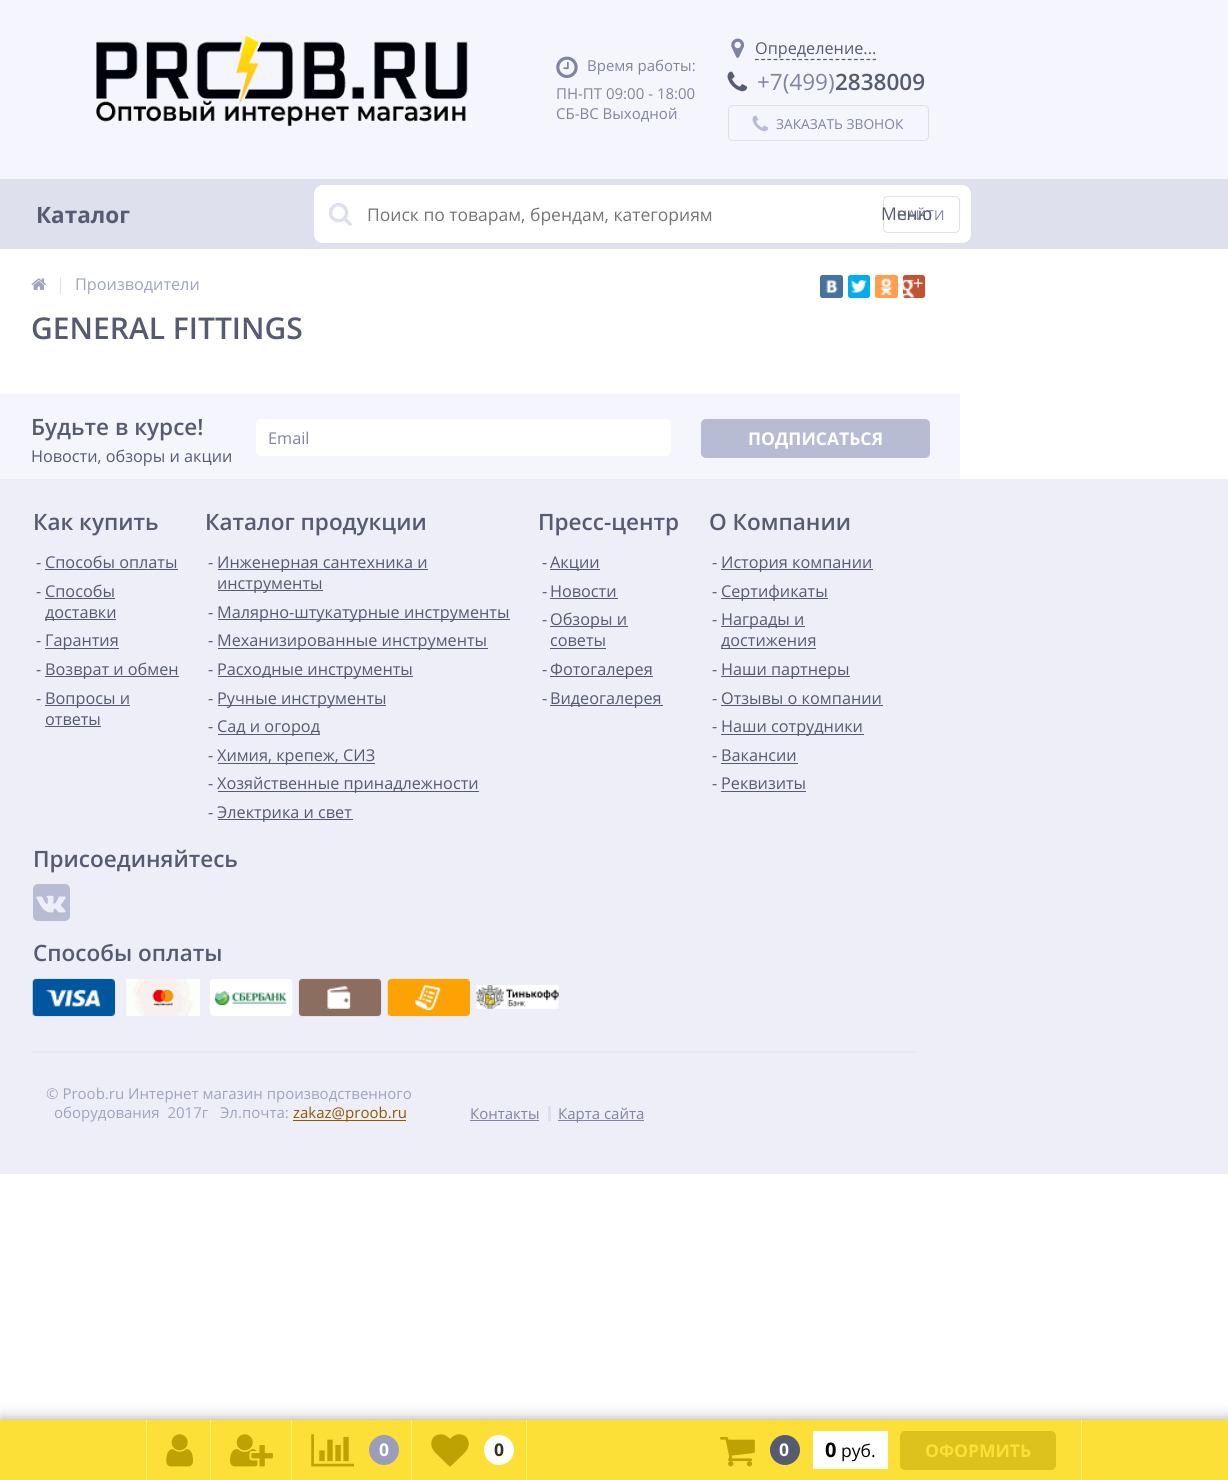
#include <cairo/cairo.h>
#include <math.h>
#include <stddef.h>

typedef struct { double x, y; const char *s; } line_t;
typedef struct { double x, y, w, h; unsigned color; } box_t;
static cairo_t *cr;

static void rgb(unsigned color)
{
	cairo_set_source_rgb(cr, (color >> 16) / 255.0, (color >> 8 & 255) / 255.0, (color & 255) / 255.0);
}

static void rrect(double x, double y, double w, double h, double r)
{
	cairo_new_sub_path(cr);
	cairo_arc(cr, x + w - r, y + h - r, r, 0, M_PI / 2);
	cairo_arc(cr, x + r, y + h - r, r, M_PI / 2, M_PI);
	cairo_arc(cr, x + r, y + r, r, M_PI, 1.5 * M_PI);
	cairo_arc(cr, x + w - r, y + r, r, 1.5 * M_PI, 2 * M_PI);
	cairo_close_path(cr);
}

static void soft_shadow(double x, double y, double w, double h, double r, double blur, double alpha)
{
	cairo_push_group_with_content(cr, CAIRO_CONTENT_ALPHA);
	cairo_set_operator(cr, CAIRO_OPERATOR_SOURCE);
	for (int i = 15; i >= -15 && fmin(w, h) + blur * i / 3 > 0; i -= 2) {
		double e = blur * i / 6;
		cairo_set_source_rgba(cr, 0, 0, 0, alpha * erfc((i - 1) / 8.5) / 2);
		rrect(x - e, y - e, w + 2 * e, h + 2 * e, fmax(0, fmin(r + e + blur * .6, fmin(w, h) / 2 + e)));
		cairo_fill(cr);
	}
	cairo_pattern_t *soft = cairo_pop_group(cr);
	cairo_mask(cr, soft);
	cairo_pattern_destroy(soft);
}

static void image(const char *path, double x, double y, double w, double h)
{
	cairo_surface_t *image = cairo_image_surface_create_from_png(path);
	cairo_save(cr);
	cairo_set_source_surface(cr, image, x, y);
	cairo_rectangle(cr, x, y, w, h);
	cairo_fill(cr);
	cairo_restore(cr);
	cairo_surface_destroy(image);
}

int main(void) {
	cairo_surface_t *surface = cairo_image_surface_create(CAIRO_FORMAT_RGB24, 1228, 1480);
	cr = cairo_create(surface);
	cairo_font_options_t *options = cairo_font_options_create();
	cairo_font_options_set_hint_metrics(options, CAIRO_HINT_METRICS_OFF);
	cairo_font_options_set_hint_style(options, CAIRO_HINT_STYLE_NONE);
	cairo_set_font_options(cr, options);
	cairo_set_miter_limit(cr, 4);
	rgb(0xffffff);
	cairo_paint(cr);
	rgb(0xedeef8);
	cairo_rectangle(cr, 0, 479, 1228, 695);
	cairo_fill(cr);
	rgb(0xf4f5fd);
	cairo_rectangle(cr, 0, 0, 1228, 179);
	cairo_fill(cr);
	image("img/1.png", 96, 35, 372, 91);
	image("img/2.png", 556, 56, 22, 22);
	image("img/3.png", 731, 38, 14, 20);
	cairo_new_path(cr);
	cairo_move_to(cr, 755, 59.5);
	cairo_line_to(cr, 876, 59.5);
	rgb(0x575b71);
	cairo_set_line_width(cr, 1.2);
	cairo_set_dash(cr, (double[]){3.75, 2.44}, 2, 0);
	cairo_stroke(cr);
	image("img/4.png", 727, 71, 21, 21);
	rrect(728.5, 105.5, 200, 35, 4.5);
	rgb(0xdee0ee);
	cairo_set_line_width(cr, 1);
	cairo_set_dash(cr, NULL, 0, 0);
	cairo_stroke(cr);
	image("img/5.png", 752, 115, 17, 17);
	cairo_rectangle(cr, 0, 179, 1228, 70);
	cairo_fill(cr);
	rgb(0xffffff);
	rrect(314.5, 185.5, 656, 57, 8.5);
	cairo_fill_preserve(cr);
	cairo_stroke(cr);
	image("img/6.png", 328, 202, 24, 24);
	rrect(883.5, 196.5, 76, 36, 4.5);
	rgb(0xdee0ee);
	cairo_stroke(cr);
	image("img/7.png", 31, 278, 15, 12);
	rgb(0x48729e);
	rrect(820, 275, 23, 23, 2.5);
	cairo_fill(cr);
	image("img/8.png", 826, 279, 12, 14);
	rgb(0x00aced);
	rrect(848, 275, 22, 23, 2.5);
	cairo_fill(cr);
	image("img/9.png", 851, 279, 16, 14);
	rgb(0xff9f4d);
	rrect(875, 275, 23, 23, 2.5);
	cairo_fill(cr);
	image("img/10.png", 881, 278, 11, 18);
	rgb(0xc25234);
	rrect(903, 275, 22, 23, 2.5);
	cairo_fill(cr);
	image("img/11.png", 903, 278, 20, 20);
	rgb(0xf4f5fd);
	cairo_rectangle(cr, 0, 394, 960, 85);
	cairo_fill(cr);
	rgb(0xffffff);
	rrect(256, 419, 415, 37, 5);
	cairo_fill(cr);
	rgb(0xb7bbd3);
	rrect(701, 419, 229, 39, 5);
	cairo_fill(cr);
	cairo_new_path(cr);
	cairo_move_to(cr, 32.5, 1052);
	cairo_line_to(cr, 917.5, 1052);
	rgb(0xdee0ee);
	cairo_set_line_width(cr, 1.2);
	cairo_set_dash(cr, (double[]){1.25, 1.25}, 2, 0);
	cairo_stroke(cr);
	{
		static const box_t items[] = {
			{45, 569, 133, 1, 0x575b71},
			{45, 598, 70, 1, 0x575b71},
			{45, 619, 71, 1, 0x575b71},
			{45, 648, 74, 1, 0x575b71},
			{45, 676, 134, 1, 0x575b71},
			{45, 705, 85, 1, 0x575b71},
			{45, 726, 56, 1, 0x575b71},
			{218, 569, 210, 1, 0x575b71},
			{218, 590, 105, 1, 0x575b71},
			{218, 619, 292, 1, 0x575b71},
			{218, 648, 270, 1, 0x575b71},
			{218, 676, 195, 1, 0x575b71},
			{218, 705, 168, 1, 0x575b71},
			{218, 734, 102, 1, 0x575b71},
			{218, 763, 157, 1, 0x575b71},
			{218, 791, 261, 1, 0x575b71},
			{218, 819, 135, 1, 0x575b71},
			{550, 569, 50, 1, 0x575b71},
			{550, 598, 68, 1, 0x575b71},
			{550, 626, 78, 1, 0x575b71},
			{550, 648, 56, 1, 0x575b71},
			{550, 676, 103, 1, 0x575b71},
			{550, 705, 113, 1, 0x575b71},
			{721, 569, 152, 1, 0x575b71},
			{721, 598, 107, 1, 0x575b71},
			{721, 626, 84, 1, 0x575b71},
			{721, 648, 95, 1, 0x575b71},
			{721, 676, 129, 1, 0x575b71},
			{721, 705, 162, 1, 0x575b71},
			{721, 734, 143, 1, 0x575b71},
			{721, 763, 77, 1, 0x575b71},
			{721, 791, 85, 1, 0x575b71},
		};
		for (size_t i = 0; i < sizeof items / sizeof *items; i++) {
			rgb(items[i].color);
			cairo_rectangle(cr, items[i].x, items[i].y, items[i].w, items[i].h);
			cairo_fill(cr);
		}
	}
	rgb(0xb7bbd3);
	rrect(33, 884, 37, 37, 5);
	cairo_fill(cr);
	image("img/12.png", 36, 895, 30, 18);
	image("img/13.png", 32, 978, 83, 39);
	image("img/14.png", 126, 979, 74, 37);
	image("img/15.png", 210, 979, 83, 37);
	image("img/16.png", 298, 978, 84, 39);
	image("img/17.png", 387, 978, 83, 39);
	image("img/18.png", 476, 985, 83, 24);
	{
		static const box_t items[] = {
			{293, 1120, 113, 1, 0x925601},
			{470, 1120, 69, 1, 0x8184a1},
			{548, 1106, 3, 15, 0xdee0ee},
			{558, 1120, 86, 1, 0x8184a1},
		};
		for (size_t i = 0; i < sizeof items / sizeof *items; i++) {
			rgb(items[i].color);
			cairo_rectangle(cr, items[i].x, items[i].y, items[i].w, items[i].h);
			cairo_fill(cr);
		}
	}
	rgb(0x000000);
	soft_shadow(0, 1420, 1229, 60, 0, 7.5, 0.36);
	{
		static const box_t items[] = {
			{0, 1420, 1228, 60, 0xfde037},
			{1081, 1420, 1, 60, 0xfff46b},
			{146, 1420, 1, 60, 0xfff46b},
			{210, 1420, 1, 60, 0xfff46b},
		};
		for (size_t i = 0; i < sizeof items / sizeof *items; i++) {
			rgb(items[i].color);
			cairo_rectangle(cr, items[i].x, items[i].y, items[i].w, items[i].h);
			cairo_fill(cr);
		}
	}
	image("img/19.png", 166, 1434, 27, 33);
	cairo_rectangle(cr, 291, 1420, 1, 60);
	cairo_fill(cr);
	image("img/20.png", 230, 1434, 43, 33);
	cairo_rectangle(cr, 411, 1420, 1, 60);
	cairo_fill(cr);
	image("img/21.png", 311, 1434, 44, 33);
	rgb(0x9b9db9);
	cairo_arc(cr, 384, 1450, 15, 0, 2 * M_PI);
	cairo_fill(cr);
	rgb(0xfff46b);
	cairo_rectangle(cr, 526, 1420, 1, 60);
	cairo_fill(cr);
	image("img/22.png", 431, 1434, 38, 33);
	rgb(0xffffff);
	cairo_arc(cr, 499, 1450, 15, 0, 2 * M_PI);
	cairo_fill(cr);
	image("img/23.png", 720, 1436, 35, 31);
	rgb(0x575b71);
	cairo_arc(cr, 785, 1450, 15, 0, 2 * M_PI);
	cairo_fill(cr);
	rgb(0xffffff);
	cairo_rectangle(cr, 813, 1431, 75, 38);
	cairo_fill(cr);
	rgb(0xddc11c);
	rrect(900, 1431, 156, 39, 5);
	cairo_fill(cr);
	cairo_select_font_face(cr, "Open Sans", CAIRO_FONT_SLANT_NORMAL, CAIRO_FONT_WEIGHT_NORMAL);
	cairo_set_font_size(cr, 15);
	rgb(0x8184a1);
	{
		static const line_t items[] = {
			{587, 71, "Время работы:"},
			{556, 99, "ПН-ПТ 09:00 - 18:00"},
			{556, 119, "СБ-ВС Выходной"},
		};
		for (size_t i = 0; i < sizeof items / sizeof *items; i++) {
			cairo_move_to(cr, items[i].x, items[i].y);
			cairo_show_text(cr, items[i].s);
		}
	}
	cairo_set_font_size(cr, 16.25);
	rgb(0x575b71);
	cairo_move_to(cr, 755, 54);
	cairo_show_text(cr, "Определение...");
	cairo_set_font_size(cr, 22.5);
	rgb(0x8184a1);
	cairo_move_to(cr, 757, 90);
	cairo_show_text(cr, "+7(499)");
	cairo_select_font_face(cr, "Open Sans SemiBold", CAIRO_FONT_SLANT_NORMAL, CAIRO_FONT_WEIGHT_NORMAL);
	rgb(0x575b71);
	cairo_move_to(cr, 835, 90);
	cairo_show_text(cr, "2838009");
	cairo_select_font_face(cr, "Open Sans", CAIRO_FONT_SLANT_NORMAL, CAIRO_FONT_WEIGHT_NORMAL);
	cairo_set_font_size(cr, 13.75);
	rgb(0x8184a1);
	cairo_move_to(cr, 776, 129);
	cairo_show_text(cr, "ЗАКАЗАТЬ ЗВОНОК");
	cairo_set_font_size(cr, 17.5);
	rgb(0x757575);
	cairo_move_to(cr, 367, 221);
	cairo_show_text(cr, "Поиск по товарам, брендам, категориям");
	cairo_set_font_size(cr, 13.75);
	rgb(0x8184a1);
	cairo_move_to(cr, 897, 220);
	cairo_show_text(cr, "НАЙТИ");
	cairo_select_font_face(cr, "Open Sans", CAIRO_FONT_SLANT_NORMAL, CAIRO_FONT_WEIGHT_BOLD);
	cairo_set_font_size(cr, 22.5);
	rgb(0x575b71);
	cairo_move_to(cr, 36, 223);
	cairo_show_text(cr, "Каталог");
	cairo_select_font_face(cr, "Open Sans", CAIRO_FONT_SLANT_NORMAL, CAIRO_FONT_WEIGHT_NORMAL);
	cairo_set_font_size(cr, 17.5);
	cairo_move_to(cr, 881, 220);
	cairo_show_text(cr, "Меню");
	cairo_set_font_size(cr, 16.25);
	rgb(0xdee0ee);
	cairo_move_to(cr, 56, 290);
	cairo_show_text(cr, "|");
	rgb(0xa0a4bc);
	cairo_move_to(cr, 75, 290);
	cairo_show_text(cr, "Производители");
	cairo_select_font_face(cr, "Open Sans SemiBold", CAIRO_FONT_SLANT_NORMAL, CAIRO_FONT_WEIGHT_NORMAL);
	cairo_set_font_size(cr, 30);
	rgb(0x575b71);
	cairo_move_to(cr, 31, 339);
	cairo_show_text(cr, "GENERAL FITTINGS");
	cairo_set_font_size(cr, 22.5);
	cairo_move_to(cr, 31, 435);
	cairo_show_text(cr, "Будьте в курсе!");
	cairo_select_font_face(cr, "Open Sans", CAIRO_FONT_SLANT_NORMAL, CAIRO_FONT_WEIGHT_NORMAL);
	cairo_set_font_size(cr, 16.25);
	cairo_move_to(cr, 31, 462);
	cairo_show_text(cr, "Новости, обзоры и акции");
	rgb(0x8184a1);
	cairo_move_to(cr, 268, 444);
	cairo_show_text(cr, "Email");
	cairo_select_font_face(cr, "Open Sans", CAIRO_FONT_SLANT_NORMAL, CAIRO_FONT_WEIGHT_BOLD);
	cairo_set_font_size(cr, 17.5);
	rgb(0xffffff);
	cairo_move_to(cr, 748, 445);
	cairo_show_text(cr, "ПОДПИСАТЬСЯ");
	cairo_select_font_face(cr, "Open Sans SemiBold", CAIRO_FONT_SLANT_NORMAL, CAIRO_FONT_WEIGHT_NORMAL);
	cairo_set_font_size(cr, 22.5);
	rgb(0x575b71);
	cairo_move_to(cr, 33, 530);
	cairo_show_text(cr, "Как купить");
	cairo_select_font_face(cr, "Open Sans", CAIRO_FONT_SLANT_NORMAL, CAIRO_FONT_WEIGHT_NORMAL);
	cairo_set_font_size(cr, 16.25);
	{
		static const line_t items[] = {
			{36, 568, "-"},
			{45, 568, "Способы оплаты"},
			{36, 597, "-"},
			{45, 597, "Способы"},
			{45, 618, "доставки"},
			{36, 646, "-"},
			{45, 646, "Гарантия"},
			{36, 675, "-"},
			{45, 675, "Возврат и обмен"},
			{36, 704, "-"},
			{45, 704, "Вопросы и"},
			{45, 725, "ответы"},
		};
		for (size_t i = 0; i < sizeof items / sizeof *items; i++) {
			cairo_move_to(cr, items[i].x, items[i].y);
			cairo_show_text(cr, items[i].s);
		}
	}
	cairo_select_font_face(cr, "Open Sans SemiBold", CAIRO_FONT_SLANT_NORMAL, CAIRO_FONT_WEIGHT_NORMAL);
	cairo_set_font_size(cr, 22.5);
	cairo_move_to(cr, 205, 530);
	cairo_show_text(cr, "Каталог продукции");
	cairo_select_font_face(cr, "Open Sans", CAIRO_FONT_SLANT_NORMAL, CAIRO_FONT_WEIGHT_NORMAL);
	cairo_set_font_size(cr, 16.25);
	{
		static const line_t items[] = {
			{208, 568, "-"},
			{217, 568, "Инженерная сантехника и"},
			{217, 589, "инструменты"},
			{208, 618, "-"},
			{217, 618, "Малярно-штукатурные инструменты"},
			{208, 646, "-"},
			{217, 646, "Механизированные инструменты"},
			{208, 675, "-"},
			{217, 675, "Расходные инструменты"},
			{208, 704, "-"},
			{217, 704, "Ручные инструменты"},
			{208, 732, "-"},
			{217, 732, "Сад и огород"},
			{208, 761, "-"},
			{217, 761, "Химия, крепеж, СИЗ"},
			{208, 789, "-"},
			{217, 789, "Хозяйственные принадлежности"},
			{208, 818, "-"},
			{217, 818, "Электрика и свет"},
		};
		for (size_t i = 0; i < sizeof items / sizeof *items; i++) {
			cairo_move_to(cr, items[i].x, items[i].y);
			cairo_show_text(cr, items[i].s);
		}
	}
	cairo_select_font_face(cr, "Open Sans SemiBold", CAIRO_FONT_SLANT_NORMAL, CAIRO_FONT_WEIGHT_NORMAL);
	cairo_set_font_size(cr, 22.5);
	cairo_move_to(cr, 538, 530);
	cairo_show_text(cr, "Пресс-центр");
	cairo_select_font_face(cr, "Open Sans", CAIRO_FONT_SLANT_NORMAL, CAIRO_FONT_WEIGHT_NORMAL);
	cairo_set_font_size(cr, 16.25);
	{
		static const line_t items[] = {
			{542, 568, "-"},
			{550, 568, "Акции"},
			{542, 597, "-"},
			{550, 597, "Новости"},
			{542, 625, "-"},
			{550, 625, "Обзоры и"},
			{550, 646, "советы"},
			{542, 675, "-"},
			{550, 675, "Фотогалерея"},
			{542, 704, "-"},
			{550, 704, "Видеогалерея"},
		};
		for (size_t i = 0; i < sizeof items / sizeof *items; i++) {
			cairo_move_to(cr, items[i].x, items[i].y);
			cairo_show_text(cr, items[i].s);
		}
	}
	cairo_select_font_face(cr, "Open Sans SemiBold", CAIRO_FONT_SLANT_NORMAL, CAIRO_FONT_WEIGHT_NORMAL);
	cairo_set_font_size(cr, 22.5);
	cairo_move_to(cr, 709, 530);
	cairo_show_text(cr, "О Компании");
	cairo_select_font_face(cr, "Open Sans", CAIRO_FONT_SLANT_NORMAL, CAIRO_FONT_WEIGHT_NORMAL);
	cairo_set_font_size(cr, 16.25);
	{
		static const line_t items[] = {
			{712, 568, "-"},
			{721, 568, "История компании"},
			{712, 597, "-"},
			{721, 597, "Сертификаты"},
			{712, 625, "-"},
			{721, 625, "Награды и"},
			{721, 646, "достижения"},
			{712, 675, "-"},
			{721, 675, "Наши партнеры"},
			{712, 704, "-"},
			{721, 704, "Отзывы о компании"},
			{712, 732, "-"},
			{721, 732, "Наши сотрудники"},
			{712, 761, "-"},
			{721, 761, "Вакансии"},
			{712, 789, "-"},
			{721, 789, "Реквизиты"},
		};
		for (size_t i = 0; i < sizeof items / sizeof *items; i++) {
			cairo_move_to(cr, items[i].x, items[i].y);
			cairo_show_text(cr, items[i].s);
		}
	}
	cairo_select_font_face(cr, "Open Sans SemiBold", CAIRO_FONT_SLANT_NORMAL, CAIRO_FONT_WEIGHT_NORMAL);
	cairo_set_font_size(cr, 22.5);
	cairo_move_to(cr, 33, 867);
	cairo_show_text(cr, "Присоединяйтесь");
	cairo_move_to(cr, 33, 961);
	cairo_show_text(cr, "Способы оплаты");
	cairo_select_font_face(cr, "Open Sans", CAIRO_FONT_SLANT_NORMAL, CAIRO_FONT_WEIGHT_NORMAL);
	cairo_set_font_size(cr, 15);
	rgb(0xa0a4bc);
	cairo_move_to(cr, 46, 1099);
	cairo_show_text(cr, "© Proob.ru Интернет магазин производственного");
	cairo_move_to(cr, 54, 1118);
	cairo_show_text(cr, "оборудования  2017г   Эл.почта:");
	rgb(0x925601);
	cairo_move_to(cr, 293, 1118);
	cairo_show_text(cr, "zakaz@proob.ru");
	rgb(0x8184a1);
	cairo_move_to(cr, 470, 1119);
	cairo_show_text(cr, "Контакты");
	cairo_move_to(cr, 558, 1119);
	cairo_show_text(cr, "Карта сайта");
	cairo_select_font_face(cr, "Open Sans", CAIRO_FONT_SLANT_NORMAL, CAIRO_FONT_WEIGHT_BOLD);
	cairo_set_font_size(cr, 17.5);
	rgb(0xffffff);
	cairo_move_to(cr, 379, 1456);
	cairo_show_text(cr, "0");
	rgb(0x363224);
	cairo_move_to(cr, 494, 1456);
	cairo_show_text(cr, "0");
	rgb(0xffffff);
	cairo_move_to(cr, 779, 1456);
	cairo_show_text(cr, "0");
	cairo_set_font_size(cr, 20);
	rgb(0x000000);
	cairo_move_to(cr, 825, 1457);
	cairo_show_text(cr, "0");
	cairo_select_font_face(cr, "Open Sans", CAIRO_FONT_SLANT_NORMAL, CAIRO_FONT_WEIGHT_NORMAL);
	cairo_set_font_size(cr, 17.5);
	cairo_move_to(cr, 841, 1457);
	cairo_show_text(cr, "руб.");
	cairo_select_font_face(cr, "Open Sans", CAIRO_FONT_SLANT_NORMAL, CAIRO_FONT_WEIGHT_BOLD);
	rgb(0xfde037);
	cairo_move_to(cr, 925, 1457);
	cairo_show_text(cr, "ОФОРМИТЬ");
	cairo_surface_write_to_png(surface, "page.png");
	cairo_font_options_destroy(options);
	cairo_destroy(cr);
	cairo_surface_destroy(surface);
	return 0;
}
